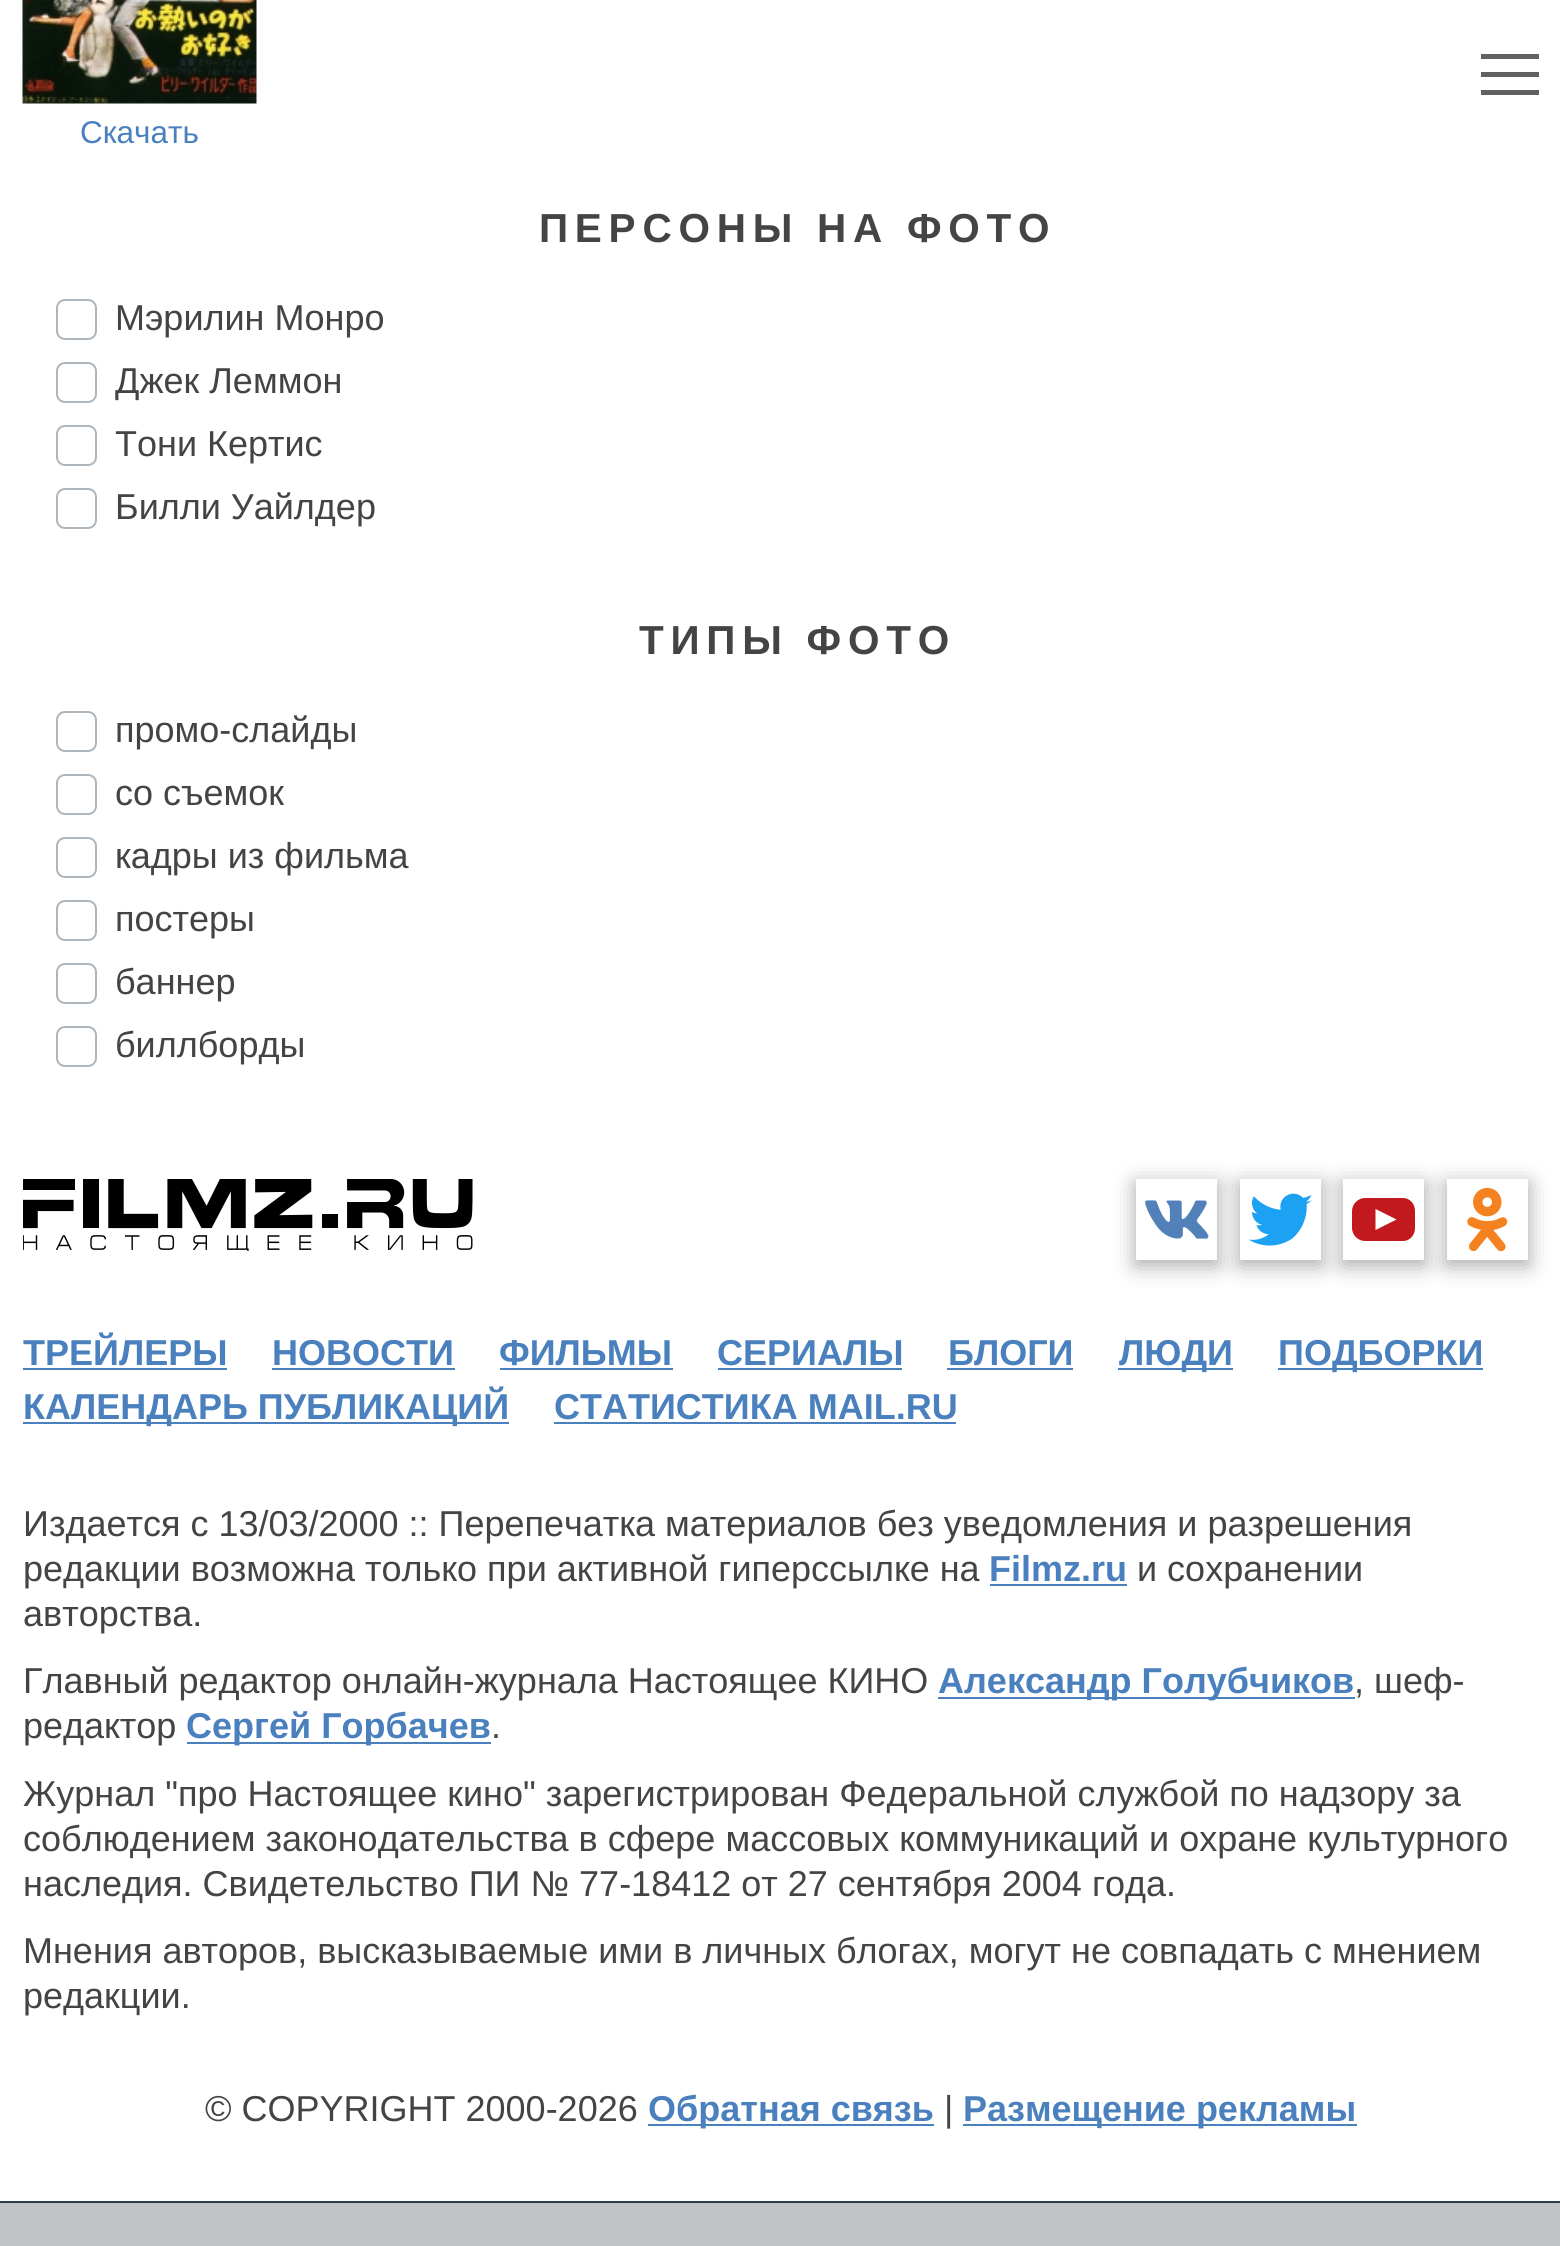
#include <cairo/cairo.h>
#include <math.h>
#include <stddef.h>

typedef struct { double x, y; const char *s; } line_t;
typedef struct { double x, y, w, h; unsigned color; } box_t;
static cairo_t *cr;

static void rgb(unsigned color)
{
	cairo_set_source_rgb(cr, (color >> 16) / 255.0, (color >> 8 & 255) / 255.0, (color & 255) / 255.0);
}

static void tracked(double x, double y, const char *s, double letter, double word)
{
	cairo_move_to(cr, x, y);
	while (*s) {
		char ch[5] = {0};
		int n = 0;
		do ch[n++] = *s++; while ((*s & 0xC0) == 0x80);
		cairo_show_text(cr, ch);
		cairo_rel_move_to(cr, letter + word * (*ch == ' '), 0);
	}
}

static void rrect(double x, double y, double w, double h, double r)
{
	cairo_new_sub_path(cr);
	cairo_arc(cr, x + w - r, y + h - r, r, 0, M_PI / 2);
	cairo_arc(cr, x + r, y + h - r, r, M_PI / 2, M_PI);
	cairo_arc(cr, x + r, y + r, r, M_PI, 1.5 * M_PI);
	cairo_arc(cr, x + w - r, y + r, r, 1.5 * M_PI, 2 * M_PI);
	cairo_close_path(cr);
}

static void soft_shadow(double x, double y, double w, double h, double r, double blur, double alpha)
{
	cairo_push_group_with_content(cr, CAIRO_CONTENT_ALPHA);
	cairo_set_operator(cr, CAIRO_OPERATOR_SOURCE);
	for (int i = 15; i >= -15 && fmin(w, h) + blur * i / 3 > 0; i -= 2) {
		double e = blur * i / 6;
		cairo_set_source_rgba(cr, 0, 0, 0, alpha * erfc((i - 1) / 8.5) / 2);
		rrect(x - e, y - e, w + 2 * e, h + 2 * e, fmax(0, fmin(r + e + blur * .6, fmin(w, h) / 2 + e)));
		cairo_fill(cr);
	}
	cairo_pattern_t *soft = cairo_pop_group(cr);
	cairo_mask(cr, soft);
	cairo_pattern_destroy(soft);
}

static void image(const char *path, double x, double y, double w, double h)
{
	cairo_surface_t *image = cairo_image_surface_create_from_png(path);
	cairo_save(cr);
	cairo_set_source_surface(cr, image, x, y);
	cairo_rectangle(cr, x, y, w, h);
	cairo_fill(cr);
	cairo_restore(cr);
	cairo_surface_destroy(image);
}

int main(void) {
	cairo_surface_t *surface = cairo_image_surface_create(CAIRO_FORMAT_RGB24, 1560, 2246);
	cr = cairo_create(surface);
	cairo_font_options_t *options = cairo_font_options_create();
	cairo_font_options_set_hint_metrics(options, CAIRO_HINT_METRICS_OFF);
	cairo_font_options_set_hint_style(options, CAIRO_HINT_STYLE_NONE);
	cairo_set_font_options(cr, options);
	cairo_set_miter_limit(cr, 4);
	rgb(0xc1c4c5);
	cairo_paint(cr);
	{
		static const box_t items[] = {
			{0, 0, 1560, 2201, 0xffffff},
			{1481, 72, 58, 5, 0x616161},
			{1481, 54, 58, 5, 0x616161},
			{1481, 90, 58, 5, 0x616161},
		};
		for (size_t i = 0; i < sizeof items / sizeof *items; i++) {
			rgb(items[i].color);
			cairo_rectangle(cr, items[i].x, items[i].y, items[i].w, items[i].h);
			cairo_fill(cr);
		}
	}
	image("img/1.png", 22, 0, 235, 104);
	rrect(57, 300, 39, 39, 8);
	rgb(0xadb5bd);
	cairo_stroke(cr);
	rrect(57, 363, 39, 39, 8);
	cairo_stroke(cr);
	rrect(57, 426, 39, 39, 8);
	cairo_stroke(cr);
	rrect(57, 489, 39, 39, 8);
	cairo_stroke(cr);
	rrect(57, 712, 39, 39, 8);
	cairo_stroke(cr);
	rrect(57, 775, 39, 39, 8);
	cairo_stroke(cr);
	rrect(57, 838, 39, 39, 8);
	cairo_stroke(cr);
	rrect(57, 901, 39, 39, 8);
	cairo_stroke(cr);
	rrect(57, 964, 39, 39, 8);
	cairo_stroke(cr);
	rrect(57, 1027, 39, 39, 8);
	cairo_stroke(cr);
	rgb(0x2c3e50);
	cairo_rectangle(cr, 0, 2201, 1560, 2);
	cairo_fill(cr);
	image("img/2.png", 23, 1179, 450, 72);
	cairo_save(cr);
	cairo_set_fill_rule(cr, CAIRO_FILL_RULE_EVEN_ODD);
	cairo_new_path(cr);
	cairo_move_to(cr, 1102, 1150);
	cairo_line_to(cr, 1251, 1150);
	cairo_line_to(cr, 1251, 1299);
	cairo_line_to(cr, 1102, 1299);
	cairo_close_path(cr);
	cairo_move_to(cr, 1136, 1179);
	cairo_line_to(cr, 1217, 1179);
	cairo_line_to(cr, 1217, 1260);
	cairo_line_to(cr, 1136, 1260);
	cairo_close_path(cr);
	cairo_clip(cr);
	rgb(0x000000);
	soft_shadow(1136, 1184, 81, 81, 0, 11, 0.35);
	cairo_restore(cr);
	image("img/3.png", 1145, 1200, 64, 39);
	cairo_save(cr);
	cairo_set_fill_rule(cr, CAIRO_FILL_RULE_EVEN_ODD);
	cairo_new_path(cr);
	cairo_move_to(cr, 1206, 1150);
	cairo_line_to(cr, 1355, 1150);
	cairo_line_to(cr, 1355, 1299);
	cairo_line_to(cr, 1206, 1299);
	cairo_close_path(cr);
	cairo_move_to(cr, 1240, 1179);
	cairo_line_to(cr, 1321, 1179);
	cairo_line_to(cr, 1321, 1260);
	cairo_line_to(cr, 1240, 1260);
	cairo_close_path(cr);
	cairo_clip(cr);
	rgb(0x000000);
	soft_shadow(1240, 1184, 81, 81, 0, 11, 0.35);
	cairo_restore(cr);
	image("img/4.png", 1248, 1193, 64, 53);
	cairo_save(cr);
	cairo_set_fill_rule(cr, CAIRO_FILL_RULE_EVEN_ODD);
	cairo_new_path(cr);
	cairo_move_to(cr, 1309, 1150);
	cairo_line_to(cr, 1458, 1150);
	cairo_line_to(cr, 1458, 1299);
	cairo_line_to(cr, 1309, 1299);
	cairo_close_path(cr);
	cairo_move_to(cr, 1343, 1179);
	cairo_line_to(cr, 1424, 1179);
	cairo_line_to(cr, 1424, 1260);
	cairo_line_to(cr, 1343, 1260);
	cairo_close_path(cr);
	cairo_clip(cr);
	rgb(0x000000);
	soft_shadow(1343, 1184, 81, 81, 0, 11, 0.35);
	cairo_restore(cr);
	rgb(0xc2191e);
	cairo_new_path(cr);
	cairo_move_to(cr, 1403, 1241);
	cairo_line_to(cr, 1365, 1241);
	cairo_curve_to(cr, 1358, 1241, 1352, 1235, 1352, 1228);
	cairo_line_to(cr, 1352, 1211);
	cairo_curve_to(cr, 1352, 1204, 1358, 1198, 1365, 1198);
	cairo_line_to(cr, 1403, 1198);
	cairo_curve_to(cr, 1410, 1198, 1415, 1204, 1415, 1211);
	cairo_line_to(cr, 1415, 1228);
	cairo_curve_to(cr, 1415, 1235, 1410, 1241, 1403, 1241);
	cairo_close_path(cr);
	cairo_fill(cr);
	rgb(0xffffff);
	cairo_new_path(cr);
	cairo_move_to(cr, 1375.5, 1230);
	cairo_line_to(cr, 1375.5, 1209);
	cairo_line_to(cr, 1396.5, 1219.5);
	cairo_close_path(cr);
	cairo_fill(cr);
	cairo_save(cr);
	cairo_set_fill_rule(cr, CAIRO_FILL_RULE_EVEN_ODD);
	cairo_new_path(cr);
	cairo_move_to(cr, 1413, 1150);
	cairo_line_to(cr, 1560, 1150);
	cairo_line_to(cr, 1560, 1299);
	cairo_line_to(cr, 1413, 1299);
	cairo_close_path(cr);
	cairo_move_to(cr, 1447, 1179);
	cairo_line_to(cr, 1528, 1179);
	cairo_line_to(cr, 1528, 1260);
	cairo_line_to(cr, 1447, 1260);
	cairo_close_path(cr);
	cairo_clip(cr);
	rgb(0x000000);
	soft_shadow(1447, 1184, 81, 81, 0, 11, 0.35);
	cairo_restore(cr);
	image("img/5.png", 1467, 1187, 41, 65);
	{
		static const box_t items[] = {
			{23, 1368, 204, 2, 0x4a80be},
			{272, 1368, 183, 2, 0x4a80be},
			{500, 1368, 173, 2, 0x4a80be},
			{718, 1368, 184, 2, 0x4a80be},
			{947, 1368, 126, 2, 0x4a80be},
			{1118, 1368, 115, 2, 0x4a80be},
			{1278, 1368, 205, 2, 0x4a80be},
			{23, 1422, 486, 2, 0x4a80be},
			{554, 1422, 402, 2, 0x4a80be},
			{990, 1584, 137, 2, 0x4a80be},
			{938, 1697, 417, 2, 0x4a80be},
			{187, 1742, 304, 2, 0x4a80be},
			{648, 2124, 286, 2, 0x4a80be},
			{963, 2124, 394, 2, 0x4a80be},
		};
		for (size_t i = 0; i < sizeof items / sizeof *items; i++) {
			rgb(items[i].color);
			cairo_rectangle(cr, items[i].x, items[i].y, items[i].w, items[i].h);
			cairo_fill(cr);
		}
	}
	cairo_select_font_face(cr, "Liberation Sans", CAIRO_FONT_SLANT_NORMAL, CAIRO_FONT_WEIGHT_NORMAL);
	cairo_set_font_size(cr, 31.5);
	cairo_move_to(cr, 80, 143);
	cairo_show_text(cr, "Скачать");
	cairo_select_font_face(cr, "Liberation Sans", CAIRO_FONT_SLANT_NORMAL, CAIRO_FONT_WEIGHT_BOLD);
	cairo_set_font_size(cr, 40.5);
	rgb(0x444444);
	tracked(539, 242, "ПЕРСОНЫ НА ФОТО", 6.75, 0);
	cairo_select_font_face(cr, "Liberation Sans", CAIRO_FONT_SLANT_NORMAL, CAIRO_FONT_WEIGHT_NORMAL);
	cairo_set_font_size(cr, 36);
	{
		static const line_t items[] = {
			{115, 330, "Мэрилин Монро"},
			{115, 393, "Джек Леммон"},
			{115, 456, "Тони Кертис"},
			{115, 519, "Билли Уайлдер"},
		};
		for (size_t i = 0; i < sizeof items / sizeof *items; i++) {
			cairo_move_to(cr, items[i].x, items[i].y);
			cairo_show_text(cr, items[i].s);
		}
	}
	cairo_select_font_face(cr, "Liberation Sans", CAIRO_FONT_SLANT_NORMAL, CAIRO_FONT_WEIGHT_BOLD);
	cairo_set_font_size(cr, 40.5);
	tracked(639, 654, "ТИПЫ ФОТО", 6.75, 0);
	cairo_select_font_face(cr, "Liberation Sans", CAIRO_FONT_SLANT_NORMAL, CAIRO_FONT_WEIGHT_NORMAL);
	cairo_set_font_size(cr, 36);
	{
		static const line_t items[] = {
			{115, 742, "промо-слайды"},
			{115, 805, "со съемок"},
			{115, 868, "кадры из фильма"},
			{115, 931, "постеры"},
			{115, 994, "баннер"},
			{115, 1057, "биллборды"},
		};
		for (size_t i = 0; i < sizeof items / sizeof *items; i++) {
			cairo_move_to(cr, items[i].x, items[i].y);
			cairo_show_text(cr, items[i].s);
		}
	}
	cairo_select_font_face(cr, "Liberation Sans", CAIRO_FONT_SLANT_NORMAL, CAIRO_FONT_WEIGHT_BOLD);
	rgb(0x4a80be);
	{
		static const line_t items[] = {
			{23, 1365, "ТРЕЙЛЕРЫ"},
			{272, 1365, "НОВОСТИ"},
			{499, 1365, "ФИЛЬМЫ"},
			{717, 1365, "СЕРИАЛЫ"},
			{948, 1365, "БЛОГИ"},
			{1119, 1365, "ЛЮДИ"},
			{1278, 1365, "ПОДБОРКИ"},
			{23, 1419, "КАЛЕНДАРЬ ПУБЛИКАЦИЙ"},
			{554, 1419, "СТАТИСТИКА MAIL.RU"},
		};
		for (size_t i = 0; i < sizeof items / sizeof *items; i++) {
			cairo_move_to(cr, items[i].x, items[i].y);
			cairo_show_text(cr, items[i].s);
		}
	}
	cairo_select_font_face(cr, "Liberation Sans", CAIRO_FONT_SLANT_NORMAL, CAIRO_FONT_WEIGHT_NORMAL);
	rgb(0x444444);
	cairo_move_to(cr, 23, 1536);
	cairo_show_text(cr, "Издается с 13/03/2000 :: Перепечатка материалов без уведомления и разрешения");
	cairo_move_to(cr, 23, 1581);
	cairo_show_text(cr, "редакции возможна только при активной гиперссылке на");
	cairo_select_font_face(cr, "Liberation Sans", CAIRO_FONT_SLANT_NORMAL, CAIRO_FONT_WEIGHT_BOLD);
	rgb(0x4a80be);
	cairo_move_to(cr, 989, 1581);
	cairo_show_text(cr, "Filmz.ru");
	cairo_select_font_face(cr, "Liberation Sans", CAIRO_FONT_SLANT_NORMAL, CAIRO_FONT_WEIGHT_NORMAL);
	rgb(0x444444);
	{
		static const line_t items[] = {
			{1137, 1581, "и сохранении"},
			{23, 1626, "авторства."},
			{23, 1693, "Главный редактор онлайн-журнала Настоящее КИНО"},
		};
		for (size_t i = 0; i < sizeof items / sizeof *items; i++) {
			cairo_move_to(cr, items[i].x, items[i].y);
			cairo_show_text(cr, items[i].s);
		}
	}
	cairo_select_font_face(cr, "Liberation Sans", CAIRO_FONT_SLANT_NORMAL, CAIRO_FONT_WEIGHT_BOLD);
	rgb(0x4a80be);
	cairo_move_to(cr, 938, 1693);
	cairo_show_text(cr, "Александр Голубчиков");
	cairo_select_font_face(cr, "Liberation Sans", CAIRO_FONT_SLANT_NORMAL, CAIRO_FONT_WEIGHT_NORMAL);
	rgb(0x444444);
	cairo_move_to(cr, 1354, 1693);
	cairo_show_text(cr, ", шеф-");
	cairo_move_to(cr, 23, 1738);
	cairo_show_text(cr, "редактор");
	cairo_select_font_face(cr, "Liberation Sans", CAIRO_FONT_SLANT_NORMAL, CAIRO_FONT_WEIGHT_BOLD);
	rgb(0x4a80be);
	cairo_move_to(cr, 186, 1738);
	cairo_show_text(cr, "Сергей Горбачев");
	cairo_select_font_face(cr, "Liberation Sans", CAIRO_FONT_SLANT_NORMAL, CAIRO_FONT_WEIGHT_NORMAL);
	rgb(0x444444);
	{
		static const line_t items[] = {
			{491, 1738, "."},
			{23, 1806, "Журнал \"про Настоящее кино\" зарегистрирован Федеральной службой по надзору за"},
			{23, 1851, "соблюдением законодательства в сфере массовых коммуникаций и охране культурного"},
			{23, 1896, "наследия. Свидетельство ПИ № 77-18412 от 27 сентября 2004 года."},
			{23, 1963, "Мнения авторов, высказываемые ими в личных блогах, могут не совпадать с мнением"},
			{23, 2008, "редакции."},
			{205, 2121, "© COPYRIGHT 2000-2026"},
		};
		for (size_t i = 0; i < sizeof items / sizeof *items; i++) {
			cairo_move_to(cr, items[i].x, items[i].y);
			cairo_show_text(cr, items[i].s);
		}
	}
	cairo_select_font_face(cr, "Liberation Sans", CAIRO_FONT_SLANT_NORMAL, CAIRO_FONT_WEIGHT_BOLD);
	rgb(0x4a80be);
	cairo_move_to(cr, 648, 2121);
	cairo_show_text(cr, "Обратная связь");
	cairo_select_font_face(cr, "Liberation Sans", CAIRO_FONT_SLANT_NORMAL, CAIRO_FONT_WEIGHT_NORMAL);
	rgb(0x444444);
	cairo_move_to(cr, 944, 2121);
	cairo_show_text(cr, "|");
	cairo_select_font_face(cr, "Liberation Sans", CAIRO_FONT_SLANT_NORMAL, CAIRO_FONT_WEIGHT_BOLD);
	rgb(0x4a80be);
	cairo_move_to(cr, 963, 2121);
	cairo_show_text(cr, "Размещение рекламы");
	cairo_surface_write_to_png(surface, "page.png");
	cairo_font_options_destroy(options);
	cairo_destroy(cr);
	cairo_surface_destroy(surface);
	return 0;
}
